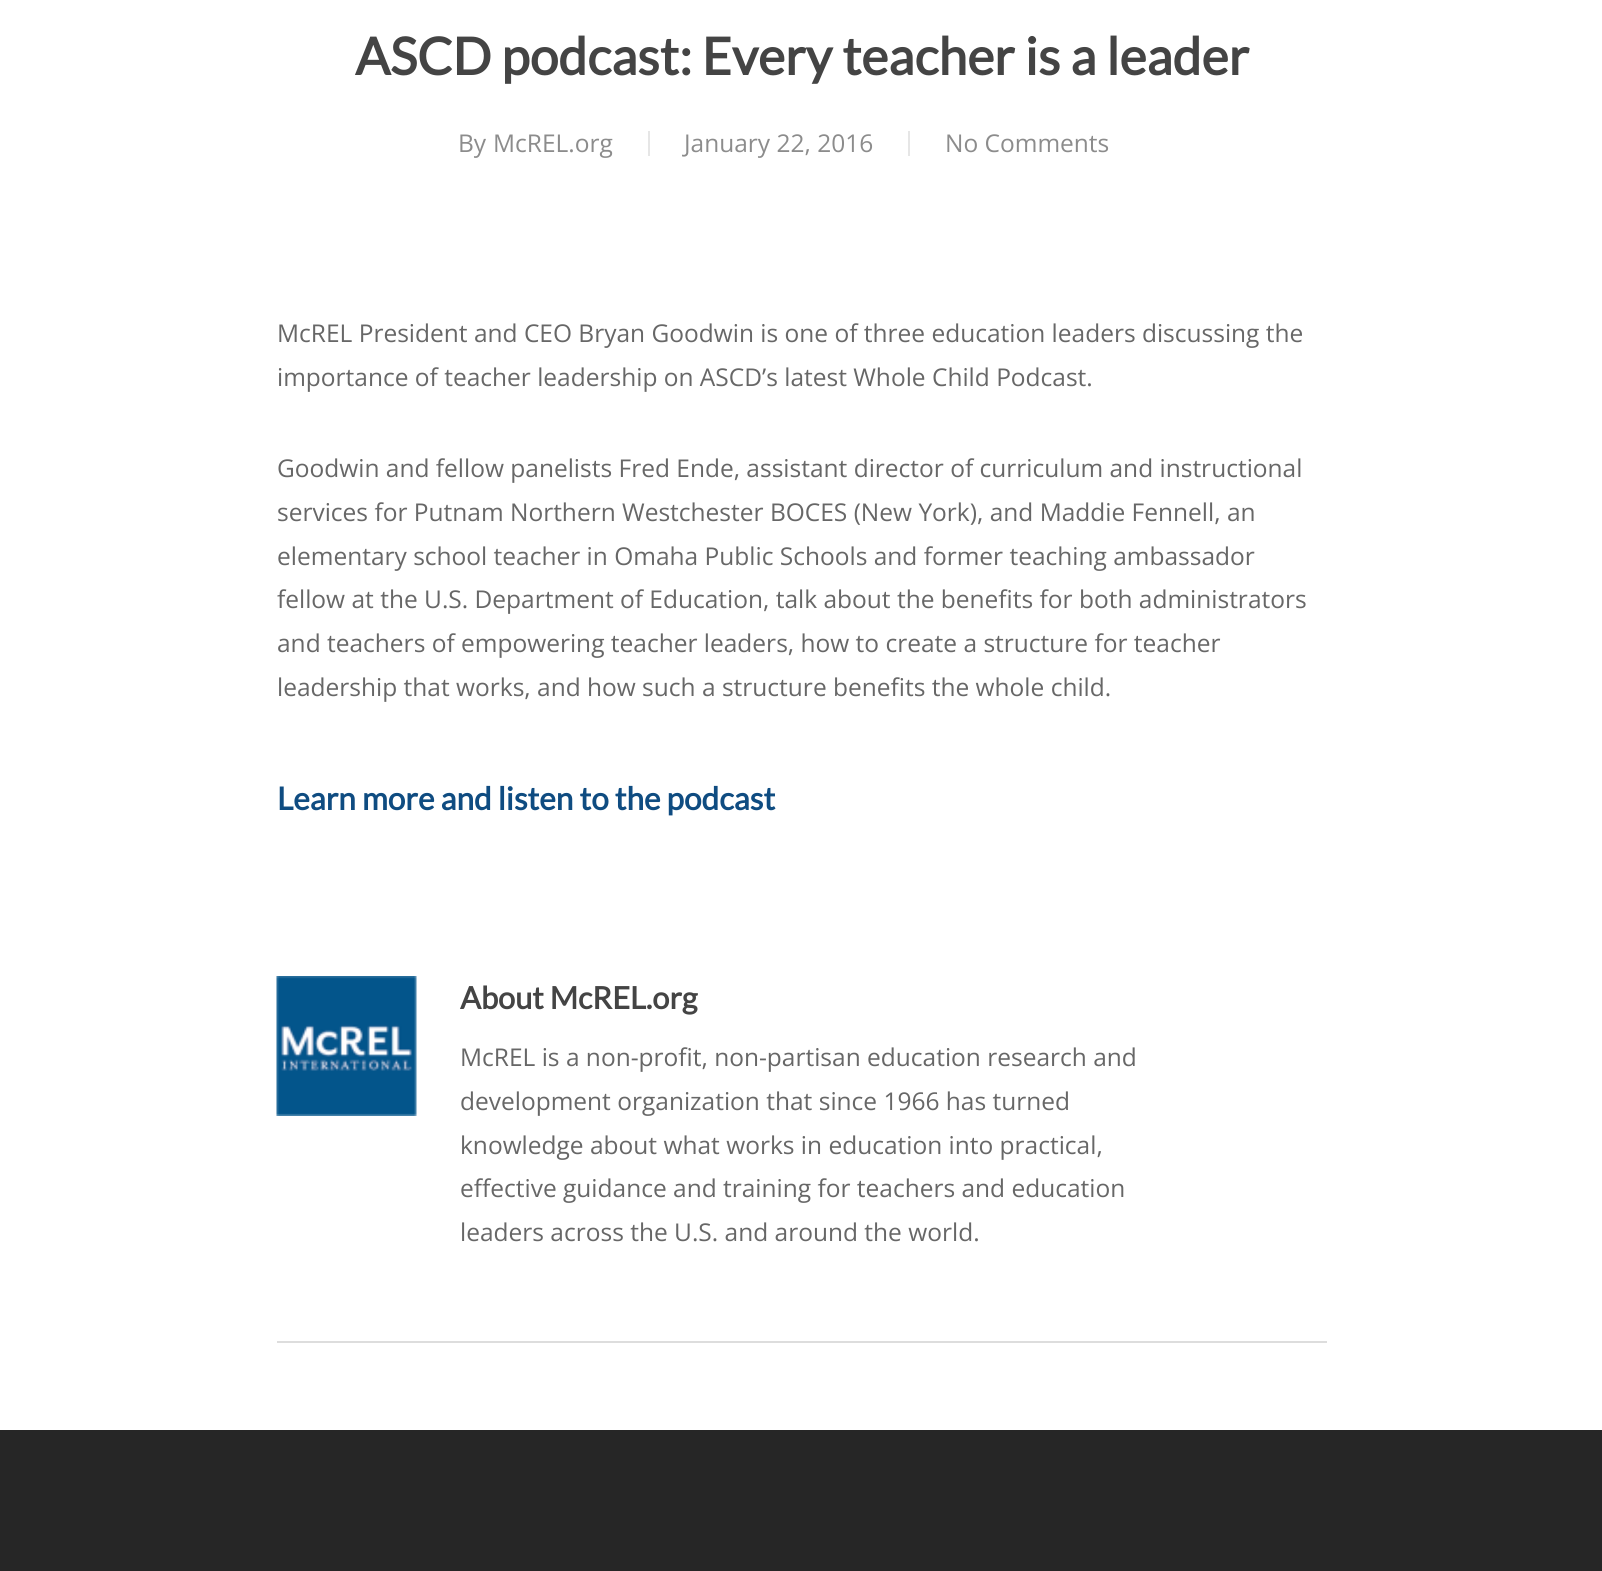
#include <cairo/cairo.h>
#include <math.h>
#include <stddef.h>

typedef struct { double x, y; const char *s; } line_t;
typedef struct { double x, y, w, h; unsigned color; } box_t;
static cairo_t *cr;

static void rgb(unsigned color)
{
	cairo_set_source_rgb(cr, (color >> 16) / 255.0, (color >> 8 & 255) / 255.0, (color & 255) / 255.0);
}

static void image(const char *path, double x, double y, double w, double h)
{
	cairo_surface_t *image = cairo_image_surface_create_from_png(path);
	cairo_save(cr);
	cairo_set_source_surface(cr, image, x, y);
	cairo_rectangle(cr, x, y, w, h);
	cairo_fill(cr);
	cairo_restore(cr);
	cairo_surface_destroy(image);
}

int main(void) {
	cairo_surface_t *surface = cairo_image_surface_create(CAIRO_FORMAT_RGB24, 1602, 1571);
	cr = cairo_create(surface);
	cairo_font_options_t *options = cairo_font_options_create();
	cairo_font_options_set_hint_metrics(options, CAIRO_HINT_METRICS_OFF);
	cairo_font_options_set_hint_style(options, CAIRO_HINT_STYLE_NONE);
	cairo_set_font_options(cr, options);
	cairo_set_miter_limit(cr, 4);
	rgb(0xffffff);
	cairo_paint(cr);
	{
		static const box_t items[] = {
			{648, 131, 2, 25, 0xe6e6e6},
			{908, 131, 2, 25, 0xe6e6e6},
			{277, 1341, 1050, 2, 0xdddddd},
		};
		for (size_t i = 0; i < sizeof items / sizeof *items; i++) {
			rgb(items[i].color);
			cairo_rectangle(cr, items[i].x, items[i].y, items[i].w, items[i].h);
			cairo_fill(cr);
		}
	}
	image("img/1.png", 276, 976, 141, 140);
	rgb(0x262626);
	cairo_rectangle(cr, 0, 1430, 1602, 141);
	cairo_fill(cr);
	cairo_select_font_face(cr, "Lato", CAIRO_FONT_SLANT_NORMAL, CAIRO_FONT_WEIGHT_BOLD);
	cairo_set_font_size(cr, 51.5);
	rgb(0x444444);
	cairo_move_to(cr, 355, 75);
	cairo_show_text(cr, "ASCD podcast: Every teacher is a leader");
	cairo_select_font_face(cr, "Open Sans", CAIRO_FONT_SLANT_NORMAL, CAIRO_FONT_WEIGHT_NORMAL);
	cairo_set_font_size(cr, 24.5);
	rgb(0x8c8c8c);
	{
		static const line_t items[] = {
			{458, 152, "By"},
			{493, 152, "McREL.org"},
			{684, 152, "January 22, 2016"},
			{945, 152, "No Comments"},
		};
		for (size_t i = 0; i < sizeof items / sizeof *items; i++) {
			cairo_move_to(cr, items[i].x, items[i].y);
			cairo_show_text(cr, items[i].s);
		}
	}
	rgb(0x676767);
	{
		static const line_t items[] = {
			{277, 342, "McREL President and CEO Bryan Goodwin is one of three education leaders discussing the"},
			{277, 386, "importance of teacher leadership on ASCD’s latest Whole Child Podcast."},
			{277, 477, "Goodwin and fellow panelists Fred Ende, assistant director of curriculum and instructional"},
			{277, 521, "services for Putnam Northern Westchester BOCES (New York), and Maddie Fennell, an"},
			{277, 565, "elementary school teacher in Omaha Public Schools and former teaching ambassador"},
			{277, 608, "fellow at the U.S. Department of Education, talk about the benefits for both administrators"},
			{277, 652, "and teachers of empowering teacher leaders, how to create a structure for teacher"},
			{277, 696, "leadership that works, and how such a structure benefits the whole child."},
		};
		for (size_t i = 0; i < sizeof items / sizeof *items; i++) {
			cairo_move_to(cr, items[i].x, items[i].y);
			cairo_show_text(cr, items[i].s);
		}
	}
	cairo_select_font_face(cr, "Lato", CAIRO_FONT_SLANT_NORMAL, CAIRO_FONT_WEIGHT_BOLD);
	cairo_set_font_size(cr, 31.5);
	rgb(0x0f4c81);
	cairo_move_to(cr, 277, 810);
	cairo_show_text(cr, "Learn more and listen to the podcast");
	cairo_set_font_size(cr, 30.75);
	rgb(0x444444);
	cairo_move_to(cr, 460, 1009);
	cairo_show_text(cr, "About McREL.org");
	cairo_select_font_face(cr, "Open Sans", CAIRO_FONT_SLANT_NORMAL, CAIRO_FONT_WEIGHT_NORMAL);
	cairo_set_font_size(cr, 24.5);
	rgb(0x676767);
	{
		static const line_t items[] = {
			{460, 1066, "McREL is a non-profit, non-partisan education research and"},
			{460, 1110, "development organization that since 1966 has turned"},
			{460, 1154, "knowledge about what works in education into practical,"},
			{460, 1197, "effective guidance and training for teachers and education"},
			{460, 1241, "leaders across the U.S. and around the world."},
		};
		for (size_t i = 0; i < sizeof items / sizeof *items; i++) {
			cairo_move_to(cr, items[i].x, items[i].y);
			cairo_show_text(cr, items[i].s);
		}
	}
	cairo_surface_write_to_png(surface, "page.png");
	cairo_font_options_destroy(options);
	cairo_destroy(cr);
	cairo_surface_destroy(surface);
	return 0;
}
